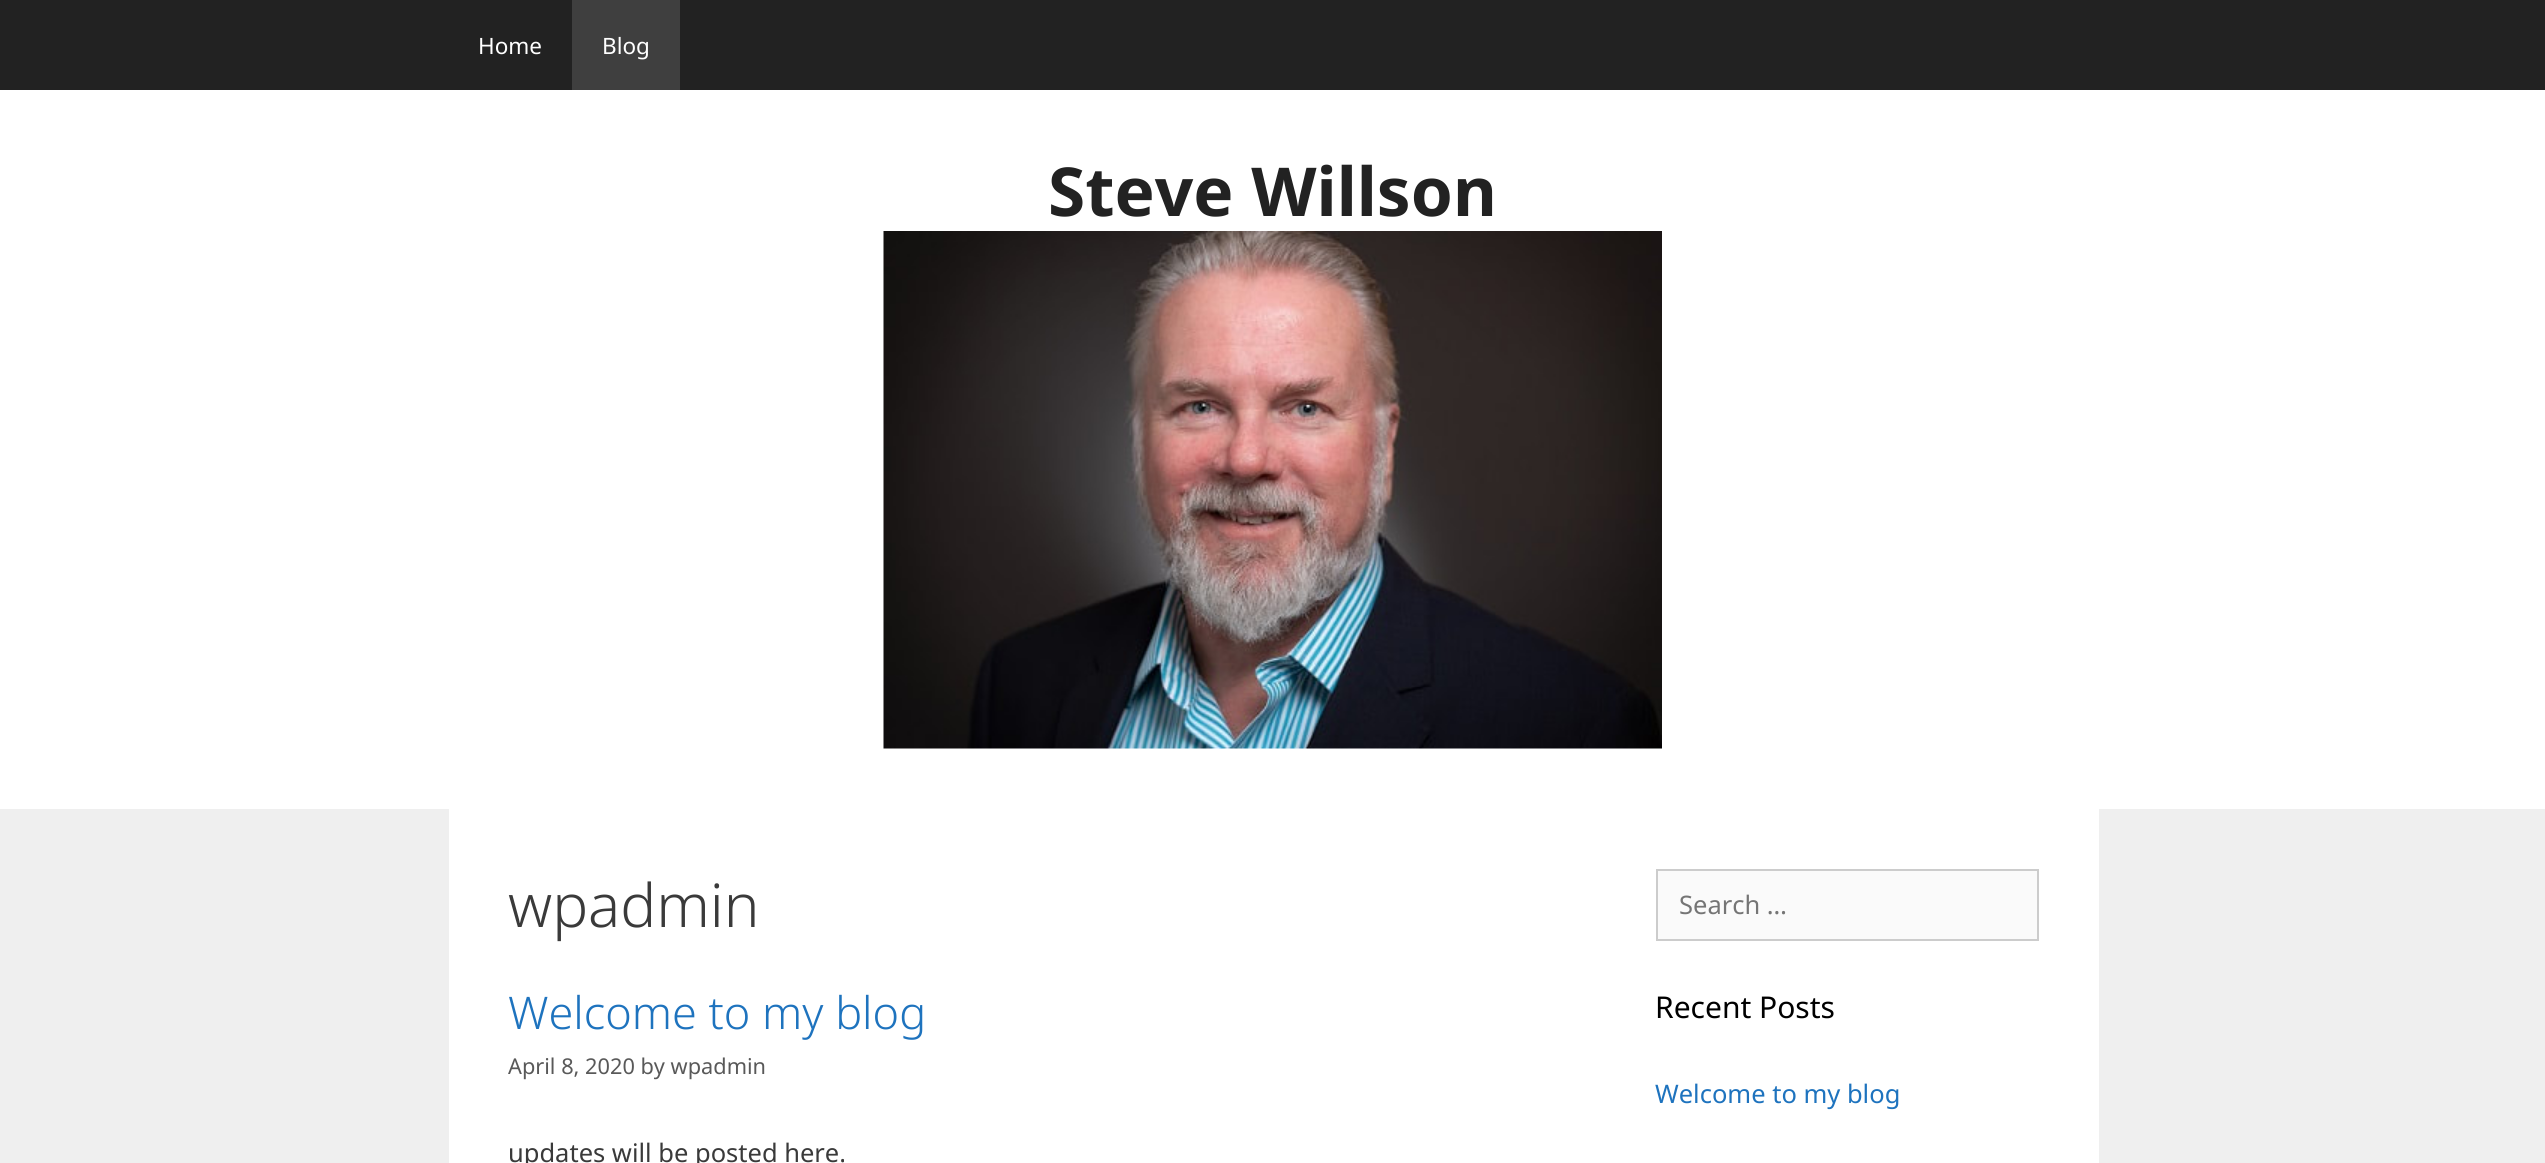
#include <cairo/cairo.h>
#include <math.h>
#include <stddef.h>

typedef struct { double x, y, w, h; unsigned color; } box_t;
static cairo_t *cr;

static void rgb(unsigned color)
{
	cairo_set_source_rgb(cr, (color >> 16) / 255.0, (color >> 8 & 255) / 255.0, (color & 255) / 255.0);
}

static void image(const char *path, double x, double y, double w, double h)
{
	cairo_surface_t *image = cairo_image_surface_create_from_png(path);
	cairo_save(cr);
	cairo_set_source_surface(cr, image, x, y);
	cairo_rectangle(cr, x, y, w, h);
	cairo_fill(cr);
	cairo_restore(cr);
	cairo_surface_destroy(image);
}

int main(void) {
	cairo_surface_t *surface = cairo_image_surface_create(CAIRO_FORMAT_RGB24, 2545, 1163);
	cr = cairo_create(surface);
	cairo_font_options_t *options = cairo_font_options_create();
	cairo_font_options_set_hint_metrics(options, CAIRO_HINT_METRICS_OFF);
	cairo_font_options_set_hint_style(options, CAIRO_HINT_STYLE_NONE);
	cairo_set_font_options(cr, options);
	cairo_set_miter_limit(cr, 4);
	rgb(0xefefef);
	cairo_paint(cr);
	{
		static const box_t items[] = {
			{0, 0, 2545, 90, 0x222222},
			{572, 0, 108, 90, 0x3f3f3f},
			{0, 90, 2545, 719, 0xffffff},
		};
		for (size_t i = 0; i < sizeof items / sizeof *items; i++) {
			rgb(items[i].color);
			cairo_rectangle(cr, items[i].x, items[i].y, items[i].w, items[i].h);
			cairo_fill(cr);
		}
	}
	image("img/1.png", 883, 231, 779, 518);
	cairo_rectangle(cr, 449, 809, 1650, 354);
	cairo_fill(cr);
	rgb(0xfafafa);
	cairo_rectangle(cr, 1657, 870, 381, 70);
	cairo_fill_preserve(cr);
	rgb(0xcccccc);
	cairo_stroke(cr);
	cairo_select_font_face(cr, "Noto Sans", CAIRO_FONT_SLANT_NORMAL, CAIRO_FONT_WEIGHT_NORMAL);
	cairo_set_font_size(cr, 22.5);
	rgb(0xffffff);
	cairo_move_to(cr, 478, 54);
	cairo_show_text(cr, "Home");
	cairo_move_to(cr, 602, 54);
	cairo_show_text(cr, "Blog");
	cairo_select_font_face(cr, "Noto Sans", CAIRO_FONT_SLANT_NORMAL, CAIRO_FONT_WEIGHT_BOLD);
	cairo_set_font_size(cr, 67.5);
	rgb(0x222222);
	cairo_move_to(cr, 1048, 216);
	cairo_show_text(cr, "Steve Willson");
	cairo_select_font_face(cr, "Noto Sans Light", CAIRO_FONT_SLANT_NORMAL, CAIRO_FONT_WEIGHT_NORMAL);
	cairo_set_font_size(cr, 60);
	rgb(0x3a3a3a);
	cairo_move_to(cr, 508, 927);
	cairo_show_text(cr, "wpadmin");
	cairo_set_font_size(cr, 45);
	rgb(0x1e73be);
	cairo_move_to(cr, 508, 1029);
	cairo_show_text(cr, "Welcome to my blog");
	cairo_select_font_face(cr, "Noto Sans", CAIRO_FONT_SLANT_NORMAL, CAIRO_FONT_WEIGHT_NORMAL);
	cairo_set_font_size(cr, 21.75);
	rgb(0x595959);
	cairo_move_to(cr, 508, 1074);
	cairo_show_text(cr, "April 8, 2020 by wpadmin");
	cairo_set_font_size(cr, 25.5);
	rgb(0x3a3a3a);
	cairo_move_to(cr, 508, 1162);
	cairo_show_text(cr, "updates will be posted here.");
	rgb(0x757575);
	cairo_move_to(cr, 1679, 914);
	cairo_show_text(cr, "Search …");
	cairo_set_font_size(cr, 30);
	rgb(0x000000);
	cairo_move_to(cr, 1655, 1018);
	cairo_show_text(cr, "Recent Posts");
	cairo_set_font_size(cr, 25.5);
	rgb(0x1e73be);
	cairo_move_to(cr, 1655, 1103);
	cairo_show_text(cr, "Welcome to my blog");
	cairo_surface_write_to_png(surface, "page.png");
	cairo_font_options_destroy(options);
	cairo_destroy(cr);
	cairo_surface_destroy(surface);
	return 0;
}
